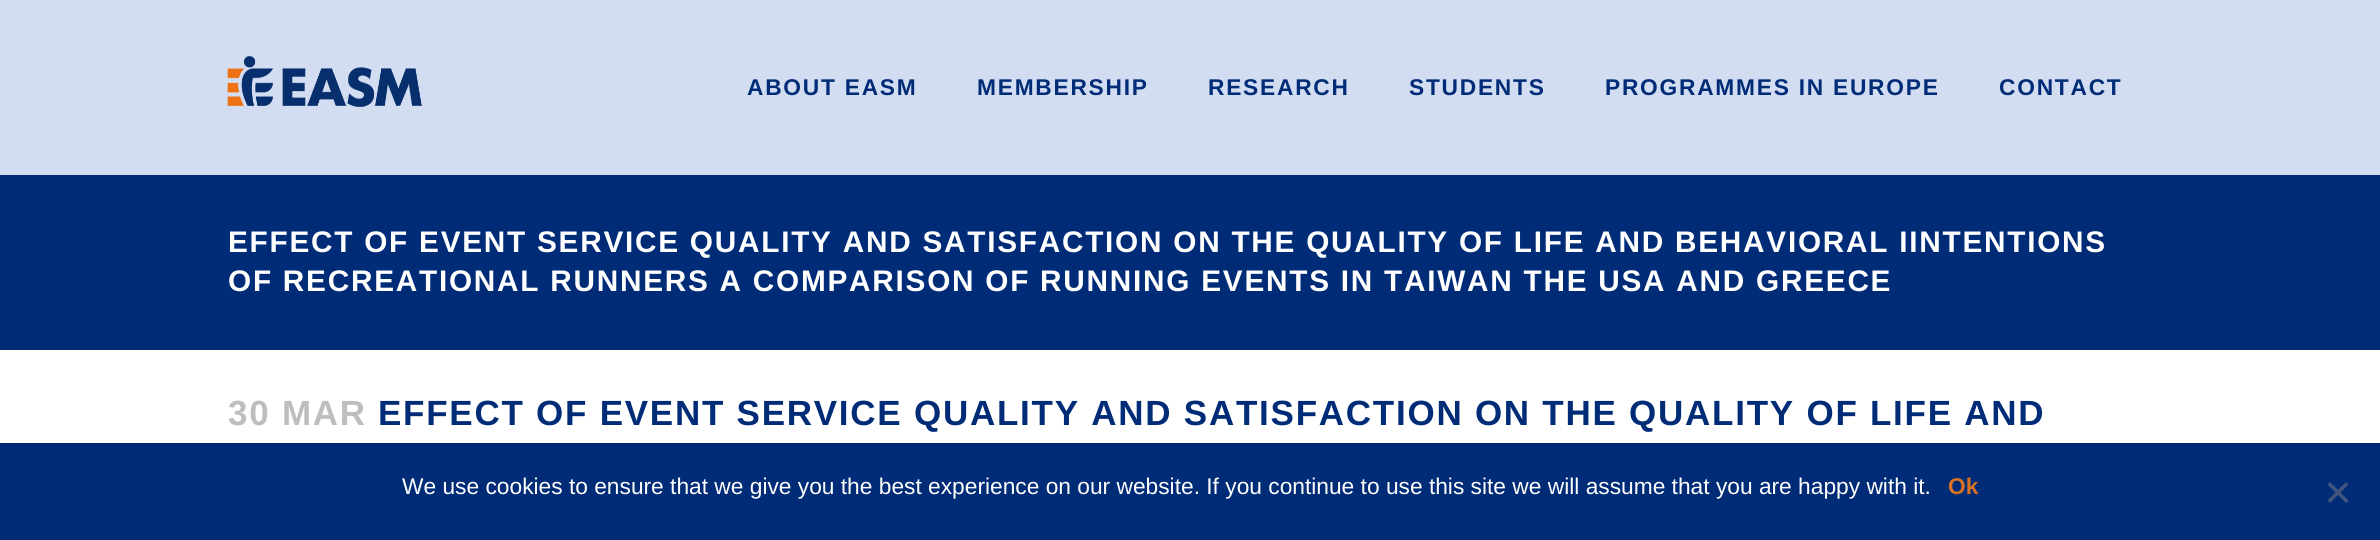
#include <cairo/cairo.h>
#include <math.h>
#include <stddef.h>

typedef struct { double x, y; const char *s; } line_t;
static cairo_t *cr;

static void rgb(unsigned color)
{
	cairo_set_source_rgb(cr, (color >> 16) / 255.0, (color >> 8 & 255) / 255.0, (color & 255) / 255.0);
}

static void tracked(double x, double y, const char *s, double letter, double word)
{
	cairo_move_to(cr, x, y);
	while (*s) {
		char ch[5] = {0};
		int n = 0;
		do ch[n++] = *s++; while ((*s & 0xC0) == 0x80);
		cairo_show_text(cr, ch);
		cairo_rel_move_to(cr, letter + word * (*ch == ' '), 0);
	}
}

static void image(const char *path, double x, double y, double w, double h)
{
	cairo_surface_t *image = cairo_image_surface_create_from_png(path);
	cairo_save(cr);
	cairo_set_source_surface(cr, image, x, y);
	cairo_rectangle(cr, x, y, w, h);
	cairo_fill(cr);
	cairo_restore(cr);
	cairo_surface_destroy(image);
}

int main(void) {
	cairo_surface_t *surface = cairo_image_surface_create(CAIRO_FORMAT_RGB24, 2380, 540);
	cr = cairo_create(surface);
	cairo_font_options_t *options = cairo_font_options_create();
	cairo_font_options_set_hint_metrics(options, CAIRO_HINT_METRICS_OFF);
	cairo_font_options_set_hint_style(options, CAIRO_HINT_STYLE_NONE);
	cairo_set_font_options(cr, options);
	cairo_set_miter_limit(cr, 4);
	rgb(0xffffff);
	cairo_paint(cr);
	rgb(0xd3ddf2);
	cairo_rectangle(cr, 0, 0, 2380, 175);
	cairo_fill(cr);
	image("img/1.png", 227, 56, 195, 51);
	rgb(0x002c77);
	cairo_rectangle(cr, 0, 175, 2380, 175);
	cairo_fill(cr);
	cairo_rectangle(cr, 0, 443, 2380, 97);
	cairo_fill(cr);
	rgb(0x40567c);
	cairo_new_path(cr);
	cairo_move_to(cr, 2346, 482);
	cairo_line_to(cr, 2348.5, 484.5);
	cairo_line_to(cr, 2330, 503);
	cairo_line_to(cr, 2327.5, 500.5);
	cairo_close_path(cr);
	cairo_fill(cr);
	cairo_new_path(cr);
	cairo_move_to(cr, 2327.5, 484.5);
	cairo_line_to(cr, 2330, 482);
	cairo_line_to(cr, 2348.5, 500.5);
	cairo_line_to(cr, 2346, 503);
	cairo_close_path(cr);
	cairo_fill(cr);
	cairo_select_font_face(cr, "Liberation Sans", CAIRO_FONT_SLANT_NORMAL, CAIRO_FONT_WEIGHT_BOLD);
	cairo_set_font_size(cr, 22.75);
	rgb(0x002c77);
	{
		static const line_t items[] = {
			{747, 95, "ABOUT EASM"},
			{977, 95, "MEMBERSHIP"},
			{1208, 95, "RESEARCH"},
			{1409, 95, "STUDENTS"},
			{1605, 95, "PROGRAMMES IN EUROPE"},
			{1999, 95, "CONTACT"},
		};
		for (size_t i = 0; i < sizeof items / sizeof *items; i++) {
			tracked(items[i].x, items[i].y, items[i].s, 1.75, 0);
		}
	}
	cairo_set_font_size(cr, 29.75);
	rgb(0xffffff);
	tracked(228, 252, "EFFECT OF EVENT SERVICE QUALITY AND SATISFACTION ON THE QUALITY OF LIFE AND BEHAVIORAL IINTENTIONS", 1.75, 0);
	tracked(228, 291, "OF RECREATIONAL RUNNERS A COMPARISON OF RUNNING EVENTS IN TAIWAN THE USA AND GREECE", 1.75, 0);
	cairo_set_font_size(cr, 35);
	rgb(0xbebebe);
	tracked(228, 425, "30 MAR", 1.75, 0);
	rgb(0x002c77);
	tracked(378, 425, "EFFECT OF EVENT SERVICE QUALITY AND SATISFACTION ON THE QUALITY OF LIFE AND", 1.75, 0);
	cairo_select_font_face(cr, "Liberation Sans", CAIRO_FONT_SLANT_NORMAL, CAIRO_FONT_WEIGHT_NORMAL);
	cairo_set_font_size(cr, 22.75);
	rgb(0xffffff);
	cairo_move_to(cr, 402, 494);
	cairo_show_text(cr, "We use cookies to ensure that we give you the best experience on our website. If you continue to use this site we will assume that you are happy with it.");
	cairo_select_font_face(cr, "Liberation Sans", CAIRO_FONT_SLANT_NORMAL, CAIRO_FONT_WEIGHT_BOLD);
	rgb(0xd97222);
	cairo_move_to(cr, 1948, 494);
	cairo_show_text(cr, "Ok");
	cairo_surface_write_to_png(surface, "page.png");
	cairo_font_options_destroy(options);
	cairo_destroy(cr);
	cairo_surface_destroy(surface);
	return 0;
}
